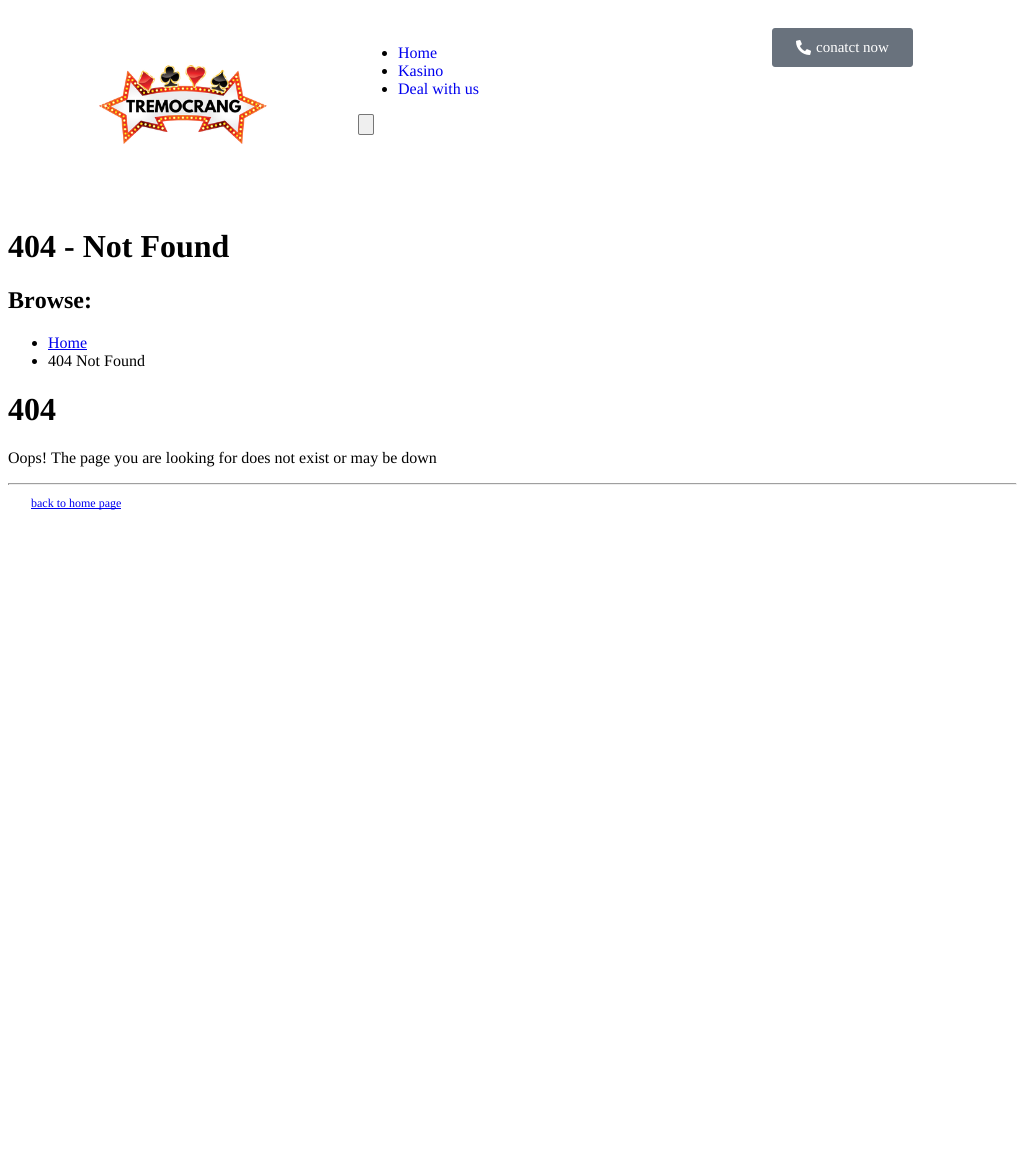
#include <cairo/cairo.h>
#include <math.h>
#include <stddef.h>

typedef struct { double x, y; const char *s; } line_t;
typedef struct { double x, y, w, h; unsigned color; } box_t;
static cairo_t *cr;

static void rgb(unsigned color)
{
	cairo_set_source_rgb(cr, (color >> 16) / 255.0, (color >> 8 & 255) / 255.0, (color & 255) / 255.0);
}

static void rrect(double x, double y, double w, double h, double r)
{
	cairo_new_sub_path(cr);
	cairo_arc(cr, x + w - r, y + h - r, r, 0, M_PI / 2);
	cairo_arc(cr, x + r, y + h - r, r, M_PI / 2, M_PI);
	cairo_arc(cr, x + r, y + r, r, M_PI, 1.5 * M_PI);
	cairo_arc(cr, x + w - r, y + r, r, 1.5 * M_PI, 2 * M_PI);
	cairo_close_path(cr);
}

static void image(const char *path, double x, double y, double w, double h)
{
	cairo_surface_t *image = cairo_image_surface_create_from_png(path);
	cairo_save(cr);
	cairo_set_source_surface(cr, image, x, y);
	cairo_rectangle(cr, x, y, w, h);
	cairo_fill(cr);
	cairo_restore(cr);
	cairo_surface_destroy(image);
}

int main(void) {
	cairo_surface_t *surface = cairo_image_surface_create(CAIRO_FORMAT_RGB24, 1025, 1157);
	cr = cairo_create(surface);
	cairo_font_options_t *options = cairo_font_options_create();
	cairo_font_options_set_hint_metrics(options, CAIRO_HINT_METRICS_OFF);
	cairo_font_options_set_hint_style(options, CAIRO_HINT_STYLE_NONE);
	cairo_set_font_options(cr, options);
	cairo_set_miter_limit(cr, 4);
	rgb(0xffffff);
	cairo_paint(cr);
	image("img/1.png", 99, 65, 168, 79);
	rgb(0x000000);
	cairo_arc(cr, 384.5, 53.5, 2.5, 0, 2 * M_PI);
	cairo_fill(cr);
	cairo_arc(cr, 384.5, 71.5, 2.5, 0, 2 * M_PI);
	cairo_fill(cr);
	cairo_arc(cr, 384.5, 89.5, 2.5, 0, 2 * M_PI);
	cairo_fill(cr);
	rgb(0xefefef);
	rrect(358.5, 114.5, 15, 20, 1.5);
	cairo_fill_preserve(cr);
	rgb(0x767676);
	cairo_set_line_width(cr, 1);
	cairo_stroke(cr);
	rgb(0x69727d);
	rrect(772, 28, 141, 39, 3);
	cairo_fill(cr);
	image("img/2.png", 796, 40, 15, 15);
	rgb(0x000000);
	cairo_arc(cr, 34.5, 343.5, 2.5, 0, 2 * M_PI);
	cairo_fill(cr);
	rgb(0x0000ee);
	cairo_rectangle(cr, 48, 349, 39, 1);
	cairo_fill(cr);
	rgb(0x000000);
	cairo_arc(cr, 34.5, 361.5, 2.5, 0, 2 * M_PI);
	cairo_fill(cr);
	{
		static const box_t items[] = {
			{8, 483, 1009, 1, 0x9f9f9f},
			{1016, 483, 1, 2, 0xeeeeee},
			{8, 484, 1009, 1, 0xeeeeee},
			{8, 483, 1, 2, 0x9f9f9f},
			{31, 508, 90, 1, 0x0000ee},
		};
		for (size_t i = 0; i < sizeof items / sizeof *items; i++) {
			rgb(items[i].color);
			cairo_rectangle(cr, items[i].x, items[i].y, items[i].w, items[i].h);
			cairo_fill(cr);
		}
	}
	cairo_select_font_face(cr, "Liberation Serif", CAIRO_FONT_SLANT_NORMAL, CAIRO_FONT_WEIGHT_NORMAL);
	cairo_set_font_size(cr, 16);
	{
		static const line_t items[] = {
			{398, 58, "Home"},
			{398, 76, "Kasino"},
			{398, 94, "Deal with us"},
		};
		for (size_t i = 0; i < sizeof items / sizeof *items; i++) {
			cairo_move_to(cr, items[i].x, items[i].y);
			cairo_show_text(cr, items[i].s);
		}
	}
	cairo_set_font_size(cr, 15);
	rgb(0xffffff);
	cairo_move_to(cr, 816, 52);
	cairo_show_text(cr, "conatct now");
	cairo_select_font_face(cr, "Liberation Serif", CAIRO_FONT_SLANT_NORMAL, CAIRO_FONT_WEIGHT_BOLD);
	cairo_set_font_size(cr, 32);
	rgb(0x000000);
	cairo_move_to(cr, 8, 257);
	cairo_show_text(cr, "404 - Not Found");
	cairo_set_font_size(cr, 24);
	cairo_move_to(cr, 8, 308);
	cairo_show_text(cr, "Browse:");
	cairo_select_font_face(cr, "Liberation Serif", CAIRO_FONT_SLANT_NORMAL, CAIRO_FONT_WEIGHT_NORMAL);
	cairo_set_font_size(cr, 16);
	rgb(0x0000ee);
	cairo_move_to(cr, 48, 348);
	cairo_show_text(cr, "Home");
	rgb(0x000000);
	cairo_move_to(cr, 48, 366);
	cairo_show_text(cr, "404 Not Found");
	cairo_select_font_face(cr, "Liberation Serif", CAIRO_FONT_SLANT_NORMAL, CAIRO_FONT_WEIGHT_BOLD);
	cairo_set_font_size(cr, 32);
	cairo_move_to(cr, 8, 420);
	cairo_show_text(cr, "404");
	cairo_select_font_face(cr, "Liberation Serif", CAIRO_FONT_SLANT_NORMAL, CAIRO_FONT_WEIGHT_NORMAL);
	cairo_set_font_size(cr, 16);
	cairo_move_to(cr, 8, 463);
	cairo_show_text(cr, "Oops! The page you are looking for does not exist or may be down");
	cairo_set_font_size(cr, 12);
	rgb(0x0000ee);
	cairo_move_to(cr, 31, 507);
	cairo_show_text(cr, "back to home page");
	cairo_surface_write_to_png(surface, "page.png");
	cairo_font_options_destroy(options);
	cairo_destroy(cr);
	cairo_surface_destroy(surface);
	return 0;
}
